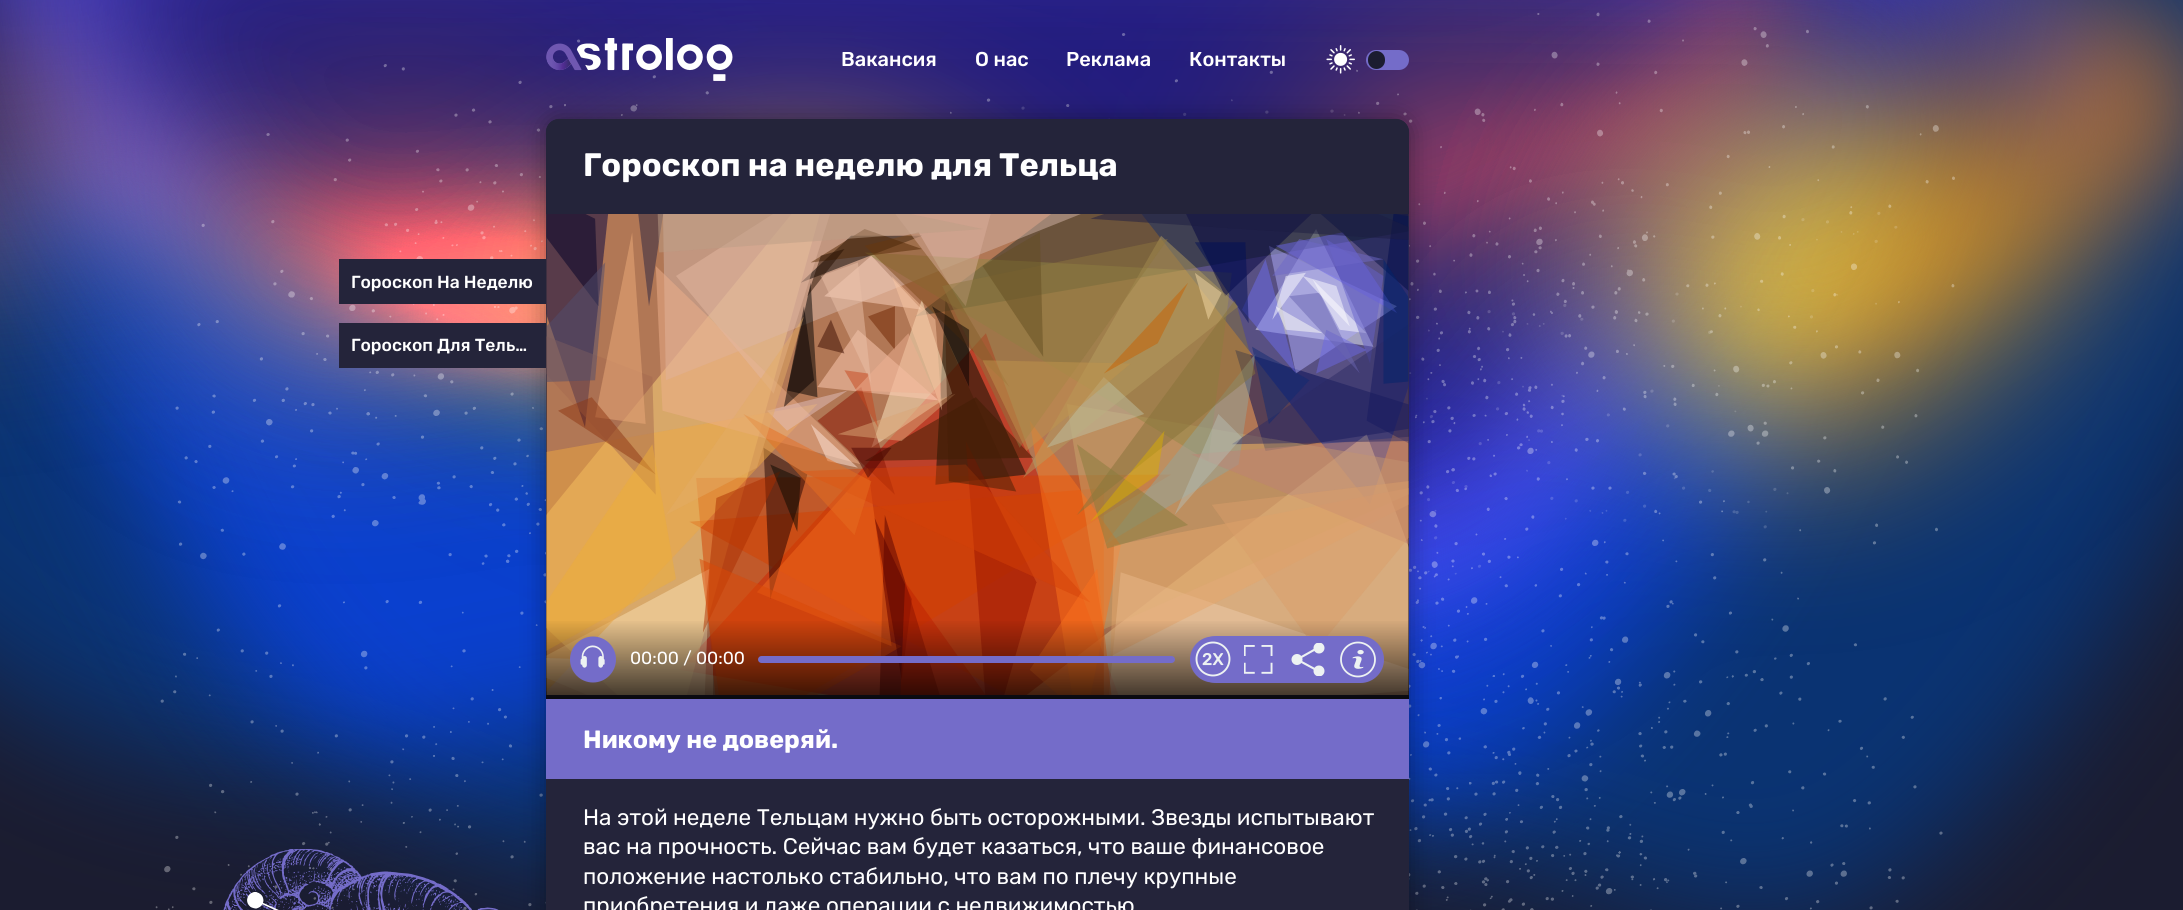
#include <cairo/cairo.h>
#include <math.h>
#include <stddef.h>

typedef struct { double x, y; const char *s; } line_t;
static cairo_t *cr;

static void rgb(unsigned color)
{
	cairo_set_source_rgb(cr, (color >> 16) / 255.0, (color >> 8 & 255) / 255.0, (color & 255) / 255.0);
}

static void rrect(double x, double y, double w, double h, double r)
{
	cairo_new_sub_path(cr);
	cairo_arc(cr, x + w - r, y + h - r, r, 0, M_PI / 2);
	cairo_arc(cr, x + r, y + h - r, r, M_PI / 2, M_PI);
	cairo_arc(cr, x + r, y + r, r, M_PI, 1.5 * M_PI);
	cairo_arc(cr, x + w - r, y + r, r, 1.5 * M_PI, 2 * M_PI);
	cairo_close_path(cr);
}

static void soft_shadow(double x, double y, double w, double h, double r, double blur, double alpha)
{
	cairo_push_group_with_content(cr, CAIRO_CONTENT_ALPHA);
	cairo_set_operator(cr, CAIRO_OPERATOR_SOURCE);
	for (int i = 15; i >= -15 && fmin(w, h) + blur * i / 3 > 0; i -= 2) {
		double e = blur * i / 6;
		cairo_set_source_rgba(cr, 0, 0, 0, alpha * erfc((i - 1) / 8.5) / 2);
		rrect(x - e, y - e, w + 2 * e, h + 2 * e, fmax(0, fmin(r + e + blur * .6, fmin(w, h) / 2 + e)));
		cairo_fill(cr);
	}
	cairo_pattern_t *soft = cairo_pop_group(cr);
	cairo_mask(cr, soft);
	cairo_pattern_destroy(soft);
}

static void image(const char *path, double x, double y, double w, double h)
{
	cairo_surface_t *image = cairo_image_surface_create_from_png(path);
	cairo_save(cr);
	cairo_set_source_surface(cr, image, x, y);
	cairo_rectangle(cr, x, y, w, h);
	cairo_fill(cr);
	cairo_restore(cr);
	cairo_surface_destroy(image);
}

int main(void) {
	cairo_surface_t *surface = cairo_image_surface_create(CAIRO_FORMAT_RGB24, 2183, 910);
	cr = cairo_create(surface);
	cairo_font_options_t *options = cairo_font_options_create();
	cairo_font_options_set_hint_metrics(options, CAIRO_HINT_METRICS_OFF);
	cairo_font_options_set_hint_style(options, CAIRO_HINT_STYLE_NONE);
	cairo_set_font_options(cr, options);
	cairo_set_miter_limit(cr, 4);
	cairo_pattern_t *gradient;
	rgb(0x1b1c30);
	cairo_paint(cr);
	image("img/1.png", 0, 0, 2183, 910);
	image("img/2.png", 546, 38, 187, 43);
	image("img/3.png", 1326, 45, 29, 29);
	rgb(0x746cc9);
	rrect(1366, 50, 43, 20, 10);
	cairo_fill(cr);
	rgb(0x1b1c30);
	rrect(1368, 51, 17, 18, 8.5);
	cairo_fill(cr);
	rgb(0x000000);
	soft_shadow(546, 119, 863, 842, 13, 12.5, 0.37);
	rgb(0x24243a);
	cairo_rectangle(cr, 339, 259, 207, 45);
	cairo_fill(cr);
	cairo_rectangle(cr, 339, 323, 207, 45);
	cairo_fill(cr);
	image("img/4.png", 223, 849, 276, 61);
	rrect(546, 119, 863, 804, 13);
	cairo_fill(cr);
	cairo_new_path(cr);
	cairo_move_to(cr, 559, 119);
	cairo_line_to(cr, 1396, 119);
	cairo_curve_to(cr, 1403, 119, 1409, 125, 1409, 132);
	cairo_line_to(cr, 1409, 214);
	cairo_line_to(cr, 546, 214);
	cairo_line_to(cr, 546, 132);
	cairo_curve_to(cr, 546, 125, 552, 119, 559, 119);
	cairo_close_path(cr);
	cairo_fill(cr);
	image("img/5.png", 546, 214, 863, 481);
	gradient = cairo_pattern_create_linear(978, 619, 978, 699);
	cairo_pattern_add_color_stop_rgba(gradient, 0, 0, 0, 0, 0);
	cairo_pattern_add_color_stop_rgba(gradient, 1, 0, 0, 0, 0.73);
	cairo_set_source(cr, gradient);
	cairo_pattern_destroy(gradient);
	cairo_rectangle(cr, 546, 621, 863, 78);
	cairo_fill(cr);
	rgb(0x746cc9);
	rrect(1193, 636, 191, 47, 23.5);
	cairo_fill(cr);
	image("img/6.png", 1244, 645, 29, 29);
	rgb(0xedf2f2);
	cairo_arc(cr, 1297, 659.5, 5.5, 0, 2 * M_PI);
	cairo_fill(cr);
	cairo_save(cr);
	cairo_rectangle(cr, 1291, 643, 34, 33);
	cairo_clip(cr);
	cairo_arc(cr, 1319, 648, 5.5, 0, 2 * M_PI);
	cairo_fill(cr);
	cairo_arc(cr, 1319, 671, 5.5, 0, 2 * M_PI);
	cairo_fill(cr);
	cairo_restore(cr);
	cairo_new_path(cr);
	cairo_move_to(cr, 1321, 646);
	cairo_line_to(cr, 1297, 659.5);
	cairo_line_to(cr, 1321, 672.5);
	cairo_set_line_width(cr, 2.1);
	cairo_stroke(cr);
	image("img/7.png", 1340, 641, 36, 37);
	image("img/8.png", 570, 636, 46, 47);
	rgb(0x746cc9);
	rrect(758, 656, 417, 7, 3.5);
	cairo_fill(cr);
	image("img/9.png", 1190, 636, 41, 47);
	cairo_rectangle(cr, 546, 699, 863, 80);
	cairo_fill(cr);
	cairo_select_font_face(cr, "Rubik Medium", CAIRO_FONT_SLANT_NORMAL, CAIRO_FONT_WEIGHT_NORMAL);
	cairo_set_font_size(cr, 20);
	rgb(0xffffff);
	{
		static const line_t items[] = {
			{841, 66, "Вакансия"},
			{975, 66, "О нас"},
			{1066, 66, "Реклама"},
			{1189, 66, "Контакты"},
		};
		for (size_t i = 0; i < sizeof items / sizeof *items; i++) {
			cairo_move_to(cr, items[i].x, items[i].y);
			cairo_show_text(cr, items[i].s);
		}
	}
	cairo_set_font_size(cr, 17.5);
	cairo_move_to(cr, 351, 288);
	cairo_show_text(cr, "Гороскоп На Неделю");
	cairo_move_to(cr, 351, 351);
	cairo_show_text(cr, "Гороскоп Для Тель…");
	cairo_select_font_face(cr, "Rubik", CAIRO_FONT_SLANT_NORMAL, CAIRO_FONT_WEIGHT_BOLD);
	cairo_set_font_size(cr, 32.5);
	cairo_move_to(cr, 583, 176);
	cairo_show_text(cr, "Гороскоп на неделю для Тельца");
	cairo_select_font_face(cr, "Rubik", CAIRO_FONT_SLANT_NORMAL, CAIRO_FONT_WEIGHT_NORMAL);
	cairo_set_font_size(cr, 17.5);
	cairo_move_to(cr, 630, 664);
	cairo_show_text(cr, "00:00 / 00:00");
	cairo_select_font_face(cr, "Rubik", CAIRO_FONT_SLANT_NORMAL, CAIRO_FONT_WEIGHT_BOLD);
	cairo_set_font_size(cr, 25);
	cairo_move_to(cr, 583, 748);
	cairo_show_text(cr, "Никому не доверяй.");
	cairo_select_font_face(cr, "Rubik", CAIRO_FONT_SLANT_NORMAL, CAIRO_FONT_WEIGHT_NORMAL);
	cairo_set_font_size(cr, 22.5);
	{
		static const line_t items[] = {
			{583, 825, "На этой неделе Тельцам нужно быть осторожными. Звезды испытывают"},
			{583, 854, "вас на прочность. Сейчас вам будет казаться, что ваше финансовое"},
			{583, 884, "положение настолько стабильно, что вам по плечу крупные"},
			{583, 913, "приобретения и даже операции с недвижимостью"},
		};
		for (size_t i = 0; i < sizeof items / sizeof *items; i++) {
			cairo_move_to(cr, items[i].x, items[i].y);
			cairo_show_text(cr, items[i].s);
		}
	}
	cairo_surface_write_to_png(surface, "page.png");
	cairo_font_options_destroy(options);
	cairo_destroy(cr);
	cairo_surface_destroy(surface);
	return 0;
}
